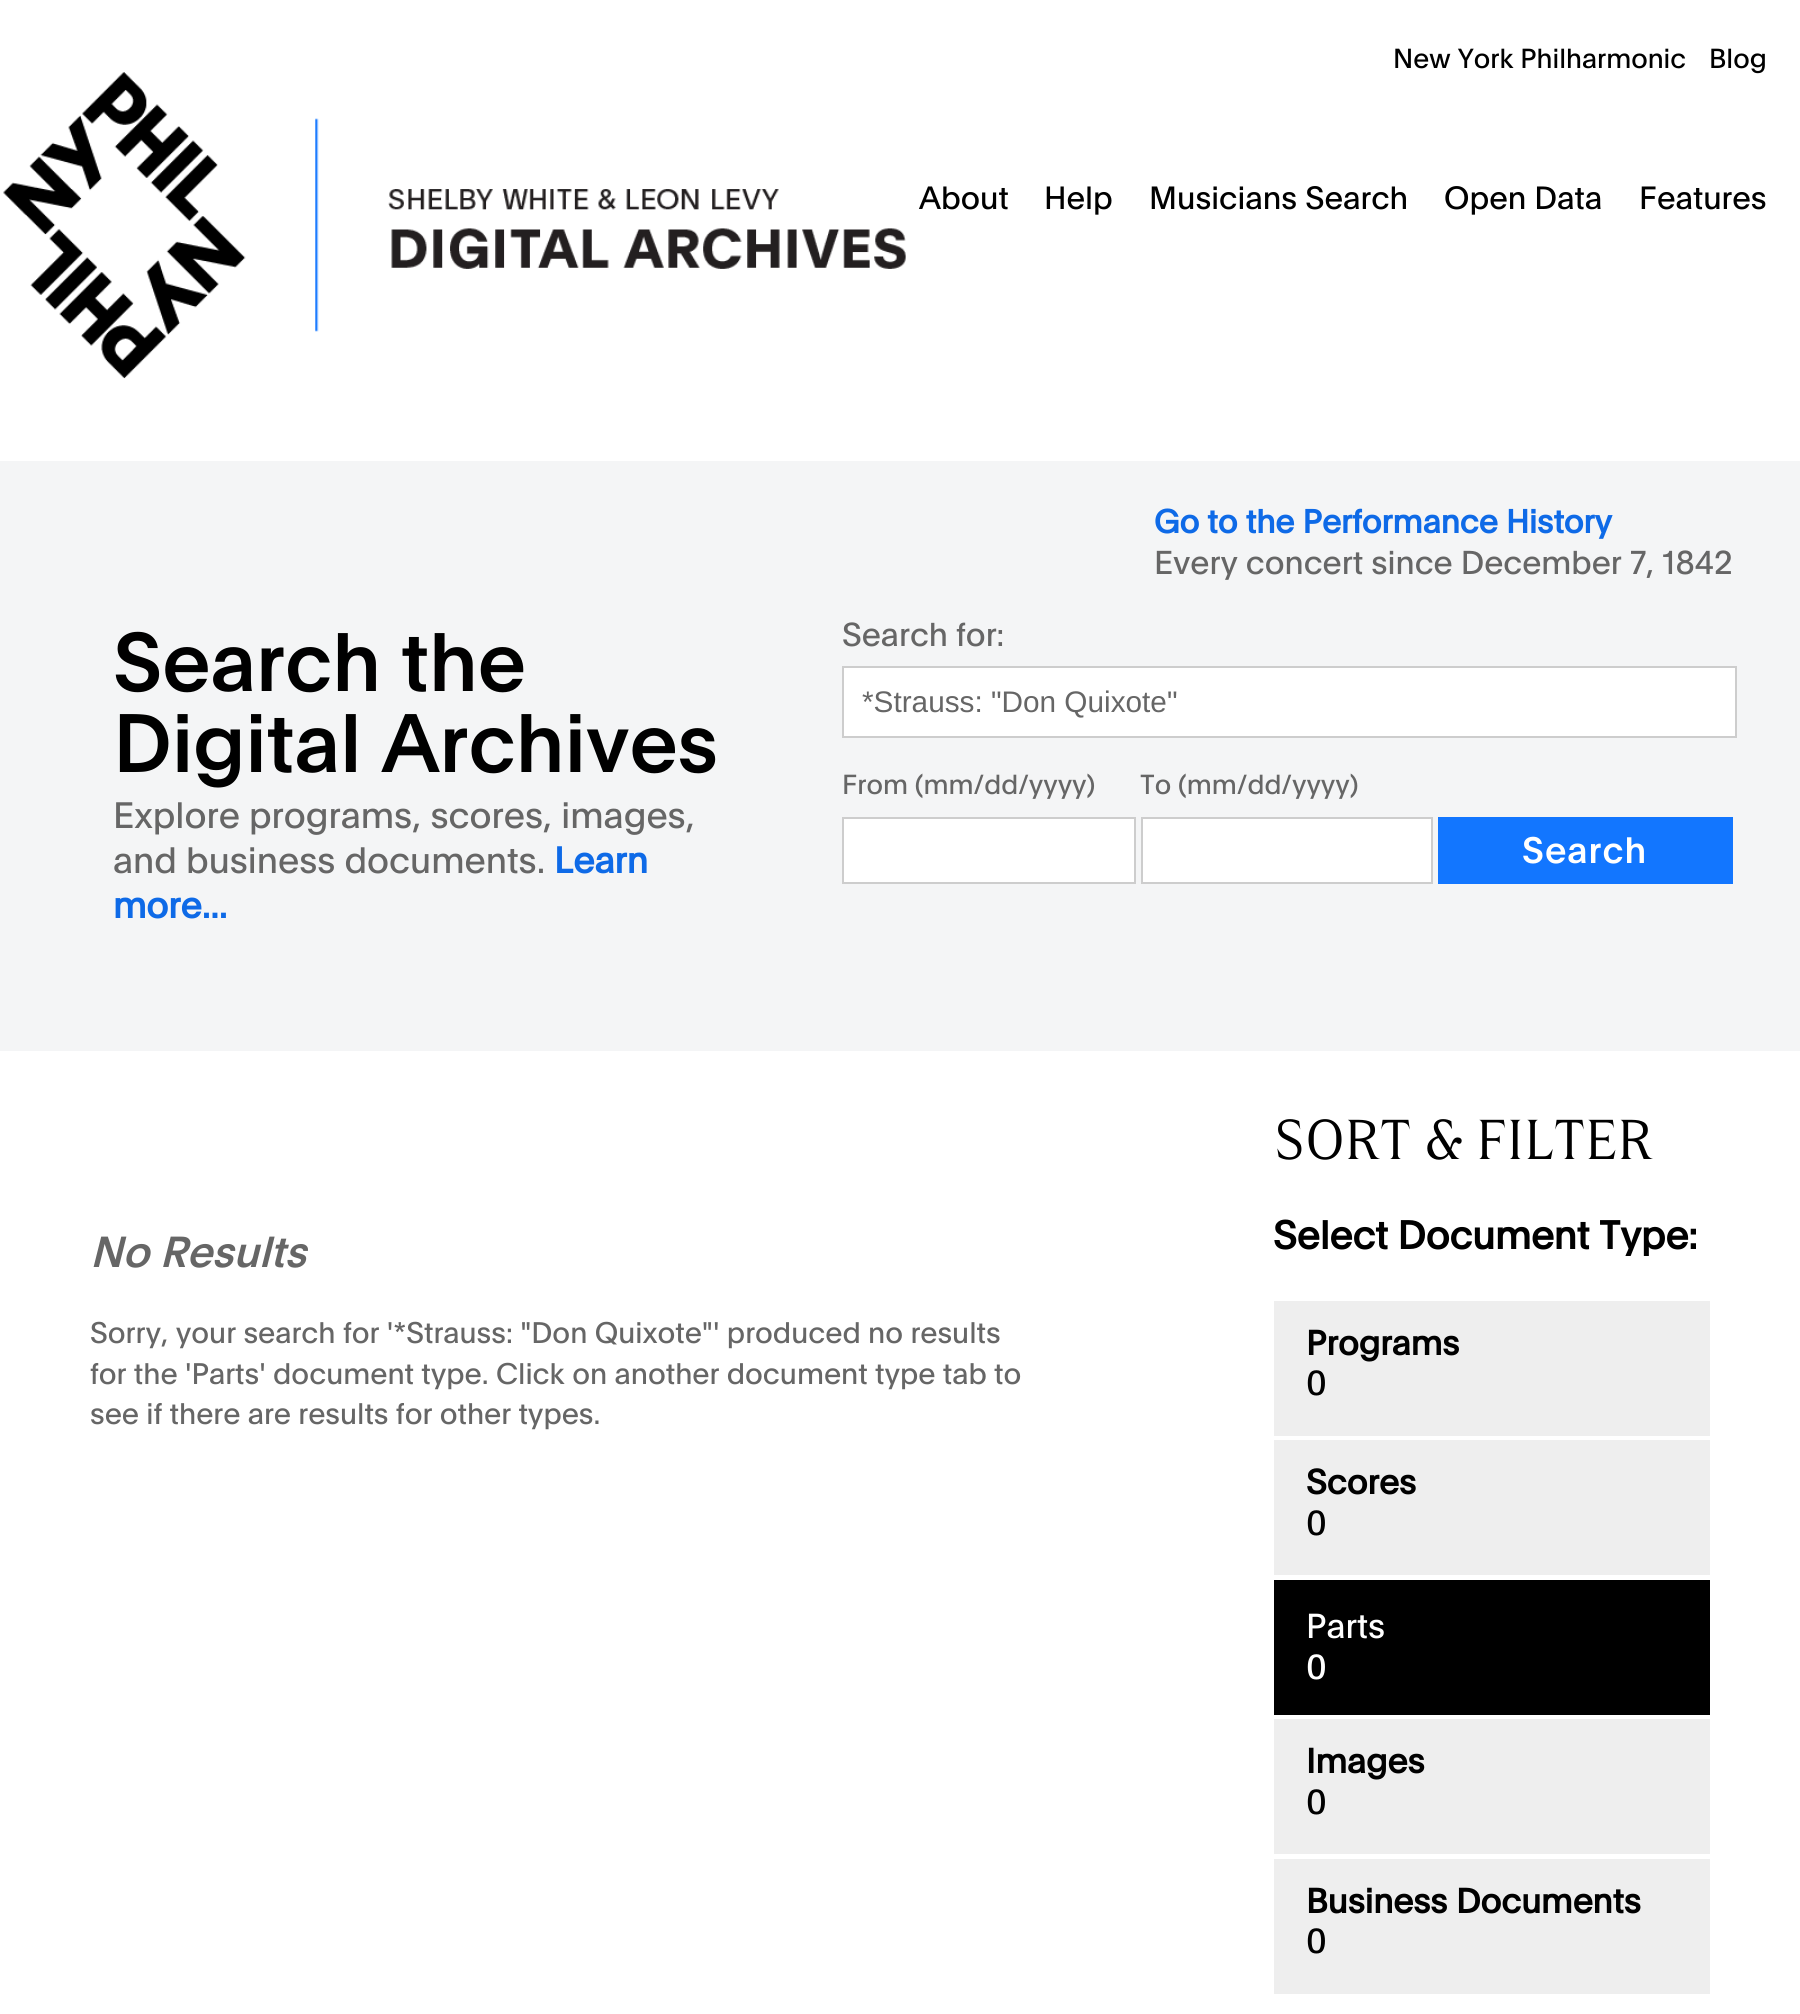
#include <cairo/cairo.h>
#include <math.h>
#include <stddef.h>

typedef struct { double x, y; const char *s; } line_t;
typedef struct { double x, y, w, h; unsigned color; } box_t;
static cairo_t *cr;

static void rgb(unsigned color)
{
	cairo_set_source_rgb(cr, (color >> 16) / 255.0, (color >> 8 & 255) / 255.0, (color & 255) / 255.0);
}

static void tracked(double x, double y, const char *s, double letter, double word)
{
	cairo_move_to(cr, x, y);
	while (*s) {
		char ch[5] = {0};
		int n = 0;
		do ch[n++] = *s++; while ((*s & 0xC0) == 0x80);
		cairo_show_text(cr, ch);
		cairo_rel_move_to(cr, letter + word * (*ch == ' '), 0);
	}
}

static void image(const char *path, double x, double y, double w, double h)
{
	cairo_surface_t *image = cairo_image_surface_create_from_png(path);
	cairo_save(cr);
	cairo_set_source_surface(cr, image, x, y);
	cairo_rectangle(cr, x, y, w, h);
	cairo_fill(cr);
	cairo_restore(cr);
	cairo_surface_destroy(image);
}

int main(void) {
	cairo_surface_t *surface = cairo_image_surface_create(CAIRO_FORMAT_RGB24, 1800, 2014);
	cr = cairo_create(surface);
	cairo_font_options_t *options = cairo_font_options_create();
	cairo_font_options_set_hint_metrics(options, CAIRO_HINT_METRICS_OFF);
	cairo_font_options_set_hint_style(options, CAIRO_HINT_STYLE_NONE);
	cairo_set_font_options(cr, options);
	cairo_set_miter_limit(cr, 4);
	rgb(0xffffff);
	cairo_paint(cr);
	image("img/1.png", 3, 72, 903, 307);
	rgb(0xf4f5f6);
	cairo_rectangle(cr, 0, 461, 1800, 590);
	cairo_fill(cr);
	rgb(0xffffff);
	cairo_rectangle(cr, 843, 667, 893, 70);
	cairo_fill_preserve(cr);
	rgb(0xcdcdcd);
	cairo_stroke(cr);
	rgb(0xffffff);
	cairo_rectangle(cr, 843, 818, 292, 65);
	cairo_fill_preserve(cr);
	rgb(0xcdcdcd);
	cairo_stroke(cr);
	rgb(0xffffff);
	cairo_rectangle(cr, 1142, 818, 290, 65);
	cairo_fill_preserve(cr);
	rgb(0xcdcdcd);
	cairo_stroke(cr);
	{
		static const box_t items[] = {
			{1438, 817, 295, 67, 0x1276ff},
			{1274, 1301, 436, 135, 0xeeeeee},
			{1274, 1440, 436, 135, 0xeeeeee},
			{1274, 1580, 436, 135, 0x000000},
			{1274, 1719, 436, 135, 0xeeeeee},
			{1274, 1859, 436, 135, 0xeeeeee},
		};
		for (size_t i = 0; i < sizeof items / sizeof *items; i++) {
			rgb(items[i].color);
			cairo_rectangle(cr, items[i].x, items[i].y, items[i].w, items[i].h);
			cairo_fill(cr);
		}
	}
	cairo_select_font_face(cr, "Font", CAIRO_FONT_SLANT_NORMAL, CAIRO_FONT_WEIGHT_NORMAL);
	cairo_set_font_size(cr, 27);
	rgb(0x000000);
	cairo_move_to(cr, 1393, 68);
	cairo_show_text(cr, "New York Philharmonic");
	cairo_move_to(cr, 1709, 68);
	cairo_show_text(cr, "Blog");
	cairo_set_font_size(cr, 31.5);
	{
		static const line_t items[] = {
			{919, 209, "About"},
			{1044, 209, "Help"},
			{1149, 209, "Musicians Search"},
			{1444, 209, "Open Data"},
			{1639, 209, "Features"},
		};
		for (size_t i = 0; i < sizeof items / sizeof *items; i++) {
			cairo_move_to(cr, items[i].x, items[i].y);
			cairo_show_text(cr, items[i].s);
		}
	}
	cairo_select_font_face(cr, "Font", CAIRO_FONT_SLANT_NORMAL, CAIRO_FONT_WEIGHT_BOLD);
	cairo_set_font_size(cr, 32.4);
	rgb(0x0e6ae7);
	cairo_move_to(cr, 1154, 533);
	cairo_show_text(cr, "Go to the Performance History");
	cairo_select_font_face(cr, "Font", CAIRO_FONT_SLANT_NORMAL, CAIRO_FONT_WEIGHT_NORMAL);
	rgb(0x666666);
	cairo_move_to(cr, 1154, 574);
	cairo_show_text(cr, "Every concert since December 7, 1842");
	cairo_select_font_face(cr, "Font Medium", CAIRO_FONT_SLANT_NORMAL, CAIRO_FONT_WEIGHT_NORMAL);
	cairo_set_font_size(cr, 81);
	rgb(0x000000);
	cairo_move_to(cr, 113, 691);
	cairo_show_text(cr, "Search the");
	cairo_move_to(cr, 113, 772);
	cairo_show_text(cr, "Digital Archives");
	cairo_select_font_face(cr, "Font", CAIRO_FONT_SLANT_NORMAL, CAIRO_FONT_WEIGHT_NORMAL);
	cairo_set_font_size(cr, 36);
	rgb(0x666666);
	cairo_move_to(cr, 113, 828);
	cairo_show_text(cr, "Explore programs, scores, images,");
	cairo_move_to(cr, 113, 873);
	cairo_show_text(cr, "and business documents.");
	cairo_select_font_face(cr, "Font", CAIRO_FONT_SLANT_NORMAL, CAIRO_FONT_WEIGHT_BOLD);
	rgb(0x0e6ae7);
	cairo_move_to(cr, 554, 873);
	cairo_show_text(cr, "Learn");
	cairo_move_to(cr, 113, 918);
	cairo_show_text(cr, "more...");
	cairo_select_font_face(cr, "Font", CAIRO_FONT_SLANT_NORMAL, CAIRO_FONT_WEIGHT_NORMAL);
	cairo_set_font_size(cr, 32.4);
	rgb(0x666666);
	cairo_move_to(cr, 842, 646);
	cairo_show_text(cr, "Search for:");
	cairo_select_font_face(cr, "Liberation Sans", CAIRO_FONT_SLANT_NORMAL, CAIRO_FONT_WEIGHT_NORMAL);
	cairo_set_font_size(cr, 29.75);
	cairo_move_to(cr, 862, 712);
	cairo_show_text(cr, "*Strauss: \"Don Quixote\"");
	cairo_select_font_face(cr, "Font", CAIRO_FONT_SLANT_NORMAL, CAIRO_FONT_WEIGHT_NORMAL);
	cairo_set_font_size(cr, 27);
	cairo_move_to(cr, 842, 794);
	cairo_show_text(cr, "From (mm/dd/yyyy)");
	cairo_move_to(cr, 1140, 794);
	cairo_show_text(cr, "To (mm/dd/yyyy)");
	cairo_select_font_face(cr, "Font Medium", CAIRO_FONT_SLANT_NORMAL, CAIRO_FONT_WEIGHT_NORMAL);
	cairo_set_font_size(cr, 36);
	rgb(0xffffff);
	tracked(1522, 863, "Search", 1, 0);
	cairo_select_font_face(cr, "Font Medium", CAIRO_FONT_SLANT_ITALIC, CAIRO_FONT_WEIGHT_NORMAL);
	cairo_set_font_size(cr, 42.5);
	rgb(0x666666);
	cairo_move_to(cr, 90, 1267);
	cairo_show_text(cr, "No Results");
	cairo_select_font_face(cr, "Font", CAIRO_FONT_SLANT_NORMAL, CAIRO_FONT_WEIGHT_NORMAL);
	cairo_set_font_size(cr, 29.15);
	{
		static const line_t items[] = {
			{90, 1343, "Sorry, your search for '*Strauss: \"Don Quixote\"' produced no results"},
			{90, 1384, "for the 'Parts' document type. Click on another document type tab to"},
			{90, 1424, "see if there are results for other types."},
		};
		for (size_t i = 0; i < sizeof items / sizeof *items; i++) {
			cairo_move_to(cr, items[i].x, items[i].y);
			cairo_show_text(cr, items[i].s);
		}
	}
	cairo_select_font_face(cr, "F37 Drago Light", CAIRO_FONT_SLANT_NORMAL, CAIRO_FONT_WEIGHT_NORMAL);
	cairo_set_font_size(cr, 60.75);
	rgb(0x000000);
	cairo_move_to(cr, 1273, 1159);
	cairo_show_text(cr, "SORT & FILTER");
	cairo_select_font_face(cr, "Font", CAIRO_FONT_SLANT_NORMAL, CAIRO_FONT_WEIGHT_BOLD);
	cairo_set_font_size(cr, 38.9);
	cairo_move_to(cr, 1273, 1249);
	cairo_show_text(cr, "Select Document Type:");
	cairo_set_font_size(cr, 34);
	cairo_move_to(cr, 1306, 1355);
	cairo_show_text(cr, "Programs");
	cairo_select_font_face(cr, "Font", CAIRO_FONT_SLANT_NORMAL, CAIRO_FONT_WEIGHT_NORMAL);
	cairo_move_to(cr, 1306, 1395);
	cairo_show_text(cr, "0");
	cairo_select_font_face(cr, "Font", CAIRO_FONT_SLANT_NORMAL, CAIRO_FONT_WEIGHT_BOLD);
	cairo_move_to(cr, 1306, 1494);
	cairo_show_text(cr, "Scores");
	cairo_select_font_face(cr, "Font", CAIRO_FONT_SLANT_NORMAL, CAIRO_FONT_WEIGHT_NORMAL);
	cairo_move_to(cr, 1306, 1535);
	cairo_show_text(cr, "0");
	rgb(0xffffff);
	cairo_move_to(cr, 1306, 1638);
	cairo_show_text(cr, "Parts");
	cairo_move_to(cr, 1306, 1679);
	cairo_show_text(cr, "0");
	cairo_select_font_face(cr, "Font", CAIRO_FONT_SLANT_NORMAL, CAIRO_FONT_WEIGHT_BOLD);
	rgb(0x000000);
	cairo_move_to(cr, 1306, 1773);
	cairo_show_text(cr, "Images");
	cairo_select_font_face(cr, "Font", CAIRO_FONT_SLANT_NORMAL, CAIRO_FONT_WEIGHT_NORMAL);
	cairo_move_to(cr, 1306, 1814);
	cairo_show_text(cr, "0");
	cairo_select_font_face(cr, "Font", CAIRO_FONT_SLANT_NORMAL, CAIRO_FONT_WEIGHT_BOLD);
	cairo_move_to(cr, 1306, 1913);
	cairo_show_text(cr, "Business Documents");
	cairo_select_font_face(cr, "Font", CAIRO_FONT_SLANT_NORMAL, CAIRO_FONT_WEIGHT_NORMAL);
	cairo_move_to(cr, 1306, 1953);
	cairo_show_text(cr, "0");
	cairo_surface_write_to_png(surface, "page.png");
	cairo_font_options_destroy(options);
	cairo_destroy(cr);
	cairo_surface_destroy(surface);
	return 0;
}
